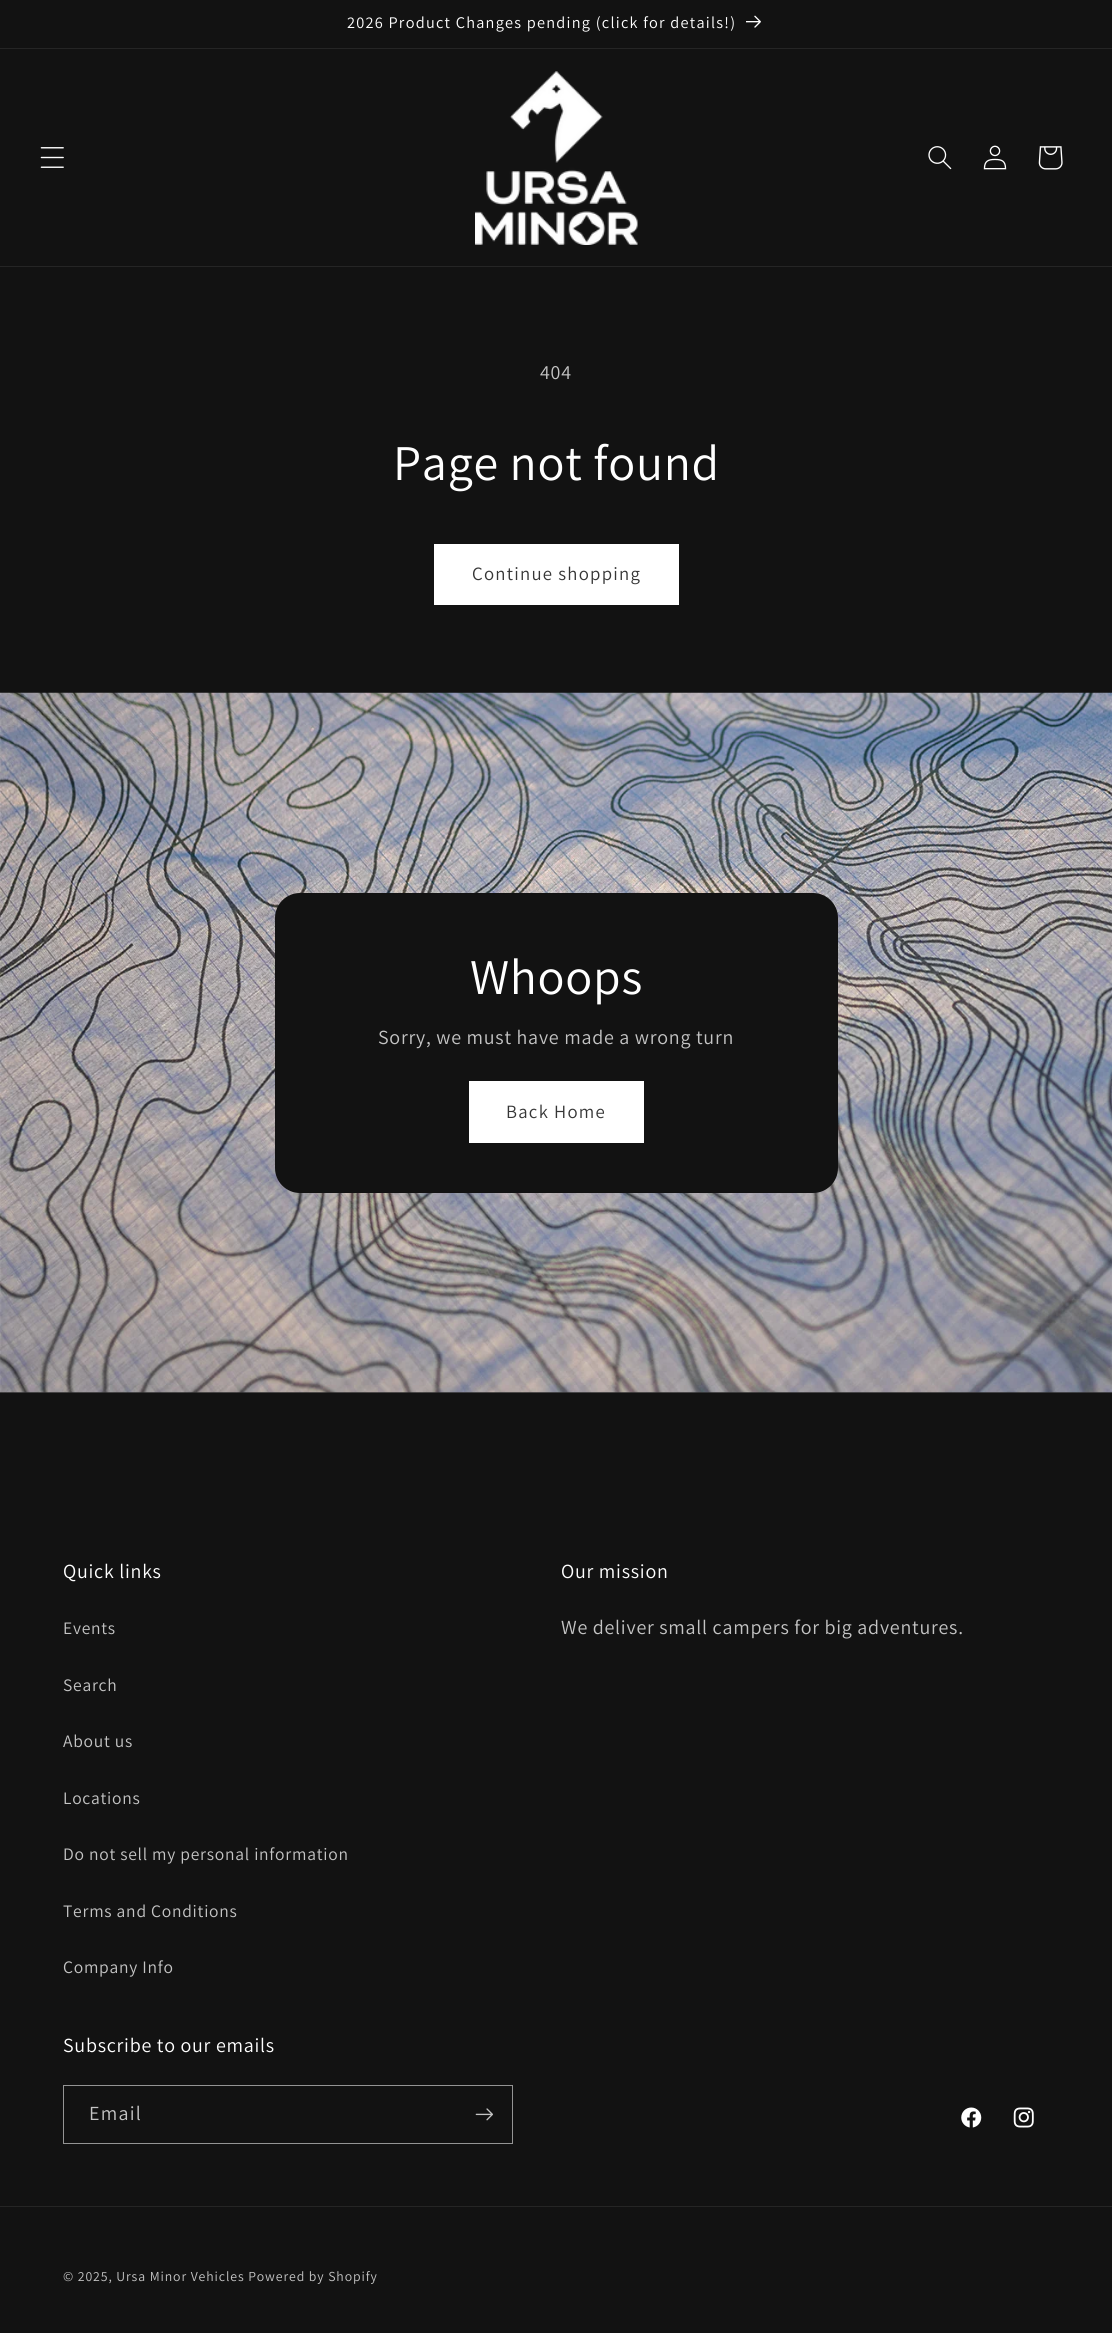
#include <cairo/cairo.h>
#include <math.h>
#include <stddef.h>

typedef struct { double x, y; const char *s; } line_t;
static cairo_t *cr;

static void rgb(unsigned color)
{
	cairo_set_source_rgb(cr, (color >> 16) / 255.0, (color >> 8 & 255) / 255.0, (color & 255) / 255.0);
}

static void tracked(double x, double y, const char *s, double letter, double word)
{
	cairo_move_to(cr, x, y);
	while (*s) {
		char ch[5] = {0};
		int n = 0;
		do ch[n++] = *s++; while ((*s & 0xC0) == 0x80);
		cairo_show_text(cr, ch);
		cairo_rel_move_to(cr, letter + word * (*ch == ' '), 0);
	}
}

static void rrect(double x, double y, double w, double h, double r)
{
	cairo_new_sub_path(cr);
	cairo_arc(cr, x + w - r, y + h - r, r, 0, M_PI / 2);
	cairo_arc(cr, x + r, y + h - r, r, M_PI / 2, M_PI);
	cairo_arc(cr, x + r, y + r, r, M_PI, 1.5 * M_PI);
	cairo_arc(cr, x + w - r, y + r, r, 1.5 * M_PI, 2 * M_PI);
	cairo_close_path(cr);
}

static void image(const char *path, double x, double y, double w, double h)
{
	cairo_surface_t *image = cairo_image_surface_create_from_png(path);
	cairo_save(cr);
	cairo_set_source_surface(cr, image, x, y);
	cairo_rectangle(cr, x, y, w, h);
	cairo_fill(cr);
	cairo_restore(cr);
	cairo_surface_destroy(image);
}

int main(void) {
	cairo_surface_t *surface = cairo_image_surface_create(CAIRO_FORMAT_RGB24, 1112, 2333);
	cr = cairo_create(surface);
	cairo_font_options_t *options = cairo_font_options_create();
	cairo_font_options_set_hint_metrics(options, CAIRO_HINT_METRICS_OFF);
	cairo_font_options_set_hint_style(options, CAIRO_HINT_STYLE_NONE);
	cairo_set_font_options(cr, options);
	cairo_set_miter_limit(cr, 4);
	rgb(0x121212);
	cairo_paint(cr);
	rgb(0x252525);
	cairo_rectangle(cr, 0, 48, 1112, 1);
	cairo_fill(cr);
	image("img/1.png", 746, 15, 15, 13);
	cairo_rectangle(cr, 0, 266, 1112, 1);
	cairo_fill(cr);
	image("img/2.png", 40, 147, 24, 21);
	image("img/3.png", 475, 71, 163, 174);
	image("img/4.png", 928, 146, 24, 24);
	image("img/5.png", 983, 145, 24, 25);
	image("img/6.png", 1038, 146, 25, 24);
	rgb(0xffffff);
	cairo_rectangle(cr, 434, 544, 245, 61);
	cairo_fill(cr);
	rgb(0x2a2a2a);
	cairo_rectangle(cr, 0, 1392, 1112, 1);
	cairo_fill(cr);
	image("img/7.png", 0, 692, 1112, 701);
	rgb(0x121212);
	rrect(275, 893, 563, 300, 25);
	cairo_fill(cr);
	rgb(0xffffff);
	cairo_rectangle(cr, 469, 1081, 175, 62);
	cairo_fill(cr);
	cairo_rectangle(cr, 63.5, 2085.5, 449, 58);
	rgb(0x949494);
	cairo_set_line_width(cr, 1);
	cairo_stroke(cr);
	image("img/8.png", 475, 2108, 18, 13);
	image("img/9.png", 961, 2107, 21, 21);
	image("img/10.png", 1013, 2107, 21, 21);
	rgb(0x252525);
	cairo_rectangle(cr, 0, 2206, 1112, 1);
	cairo_fill(cr);
	cairo_select_font_face(cr, "Assistant", CAIRO_FONT_SLANT_NORMAL, CAIRO_FONT_WEIGHT_NORMAL);
	cairo_set_font_size(cr, 16.25);
	rgb(0xffffff);
	tracked(347, 28, "2026 Product Changes pending (click for details!)", 1.25, 0);
	cairo_set_font_size(cr, 20);
	rgb(0xc4c4c4);
	tracked(540, 379, "404", 0.75, 0);
	cairo_set_font_size(cr, 50);
	rgb(0xffffff);
	tracked(393, 480, "Page not found", 0.75, 0);
	cairo_set_font_size(cr, 18.75);
	rgb(0x363636);
	tracked(472, 580, "Continue shopping", 1.25, 0);
	cairo_set_font_size(cr, 50);
	rgb(0xffffff);
	tracked(470, 994, "Whoops", 0.75, 0);
	cairo_set_font_size(cr, 20);
	rgb(0xc4c4c4);
	tracked(378, 1044, "Sorry, we must have made a wrong turn", 0.75, 0);
	cairo_set_font_size(cr, 18.75);
	rgb(0x363636);
	tracked(506, 1118, "Back Home", 1.25, 0);
	cairo_set_font_size(cr, 20);
	rgb(0xffffff);
	tracked(63, 1578, "Quick links", 0.75, 0);
	cairo_set_font_size(cr, 17.5);
	rgb(0xc4c4c4);
	{
		static const line_t items[] = {
			{63, 1634, "Events"},
			{63, 1691, "Search"},
			{63, 1747, "About us"},
			{63, 1804, "Locations"},
			{63, 1860, "Do not sell my personal information"},
			{63, 1917, "Terms and Conditions"},
			{63, 1973, "Company Info"},
		};
		for (size_t i = 0; i < sizeof items / sizeof *items; i++) {
			tracked(items[i].x, items[i].y, items[i].s, 0.75, 0);
		}
	}
	cairo_set_font_size(cr, 20);
	rgb(0xffffff);
	tracked(561, 1578, "Our mission", 0.75, 0);
	rgb(0xc4c4c4);
	tracked(561, 1634, "We deliver small campers for big adventures.", 0.75, 0);
	rgb(0xffffff);
	tracked(63, 2052, "Subscribe to our emails", 0.75, 0);
	rgb(0xc4c4c4);
	tracked(89, 2120, "Email", 1.25, 0);
	cairo_set_font_size(cr, 13.75);
	tracked(63, 2281, "© 2025, Ursa Minor Vehicles Powered by Shopify", 0.9, 0);
	cairo_surface_write_to_png(surface, "page.png");
	cairo_font_options_destroy(options);
	cairo_destroy(cr);
	cairo_surface_destroy(surface);
	return 0;
}
